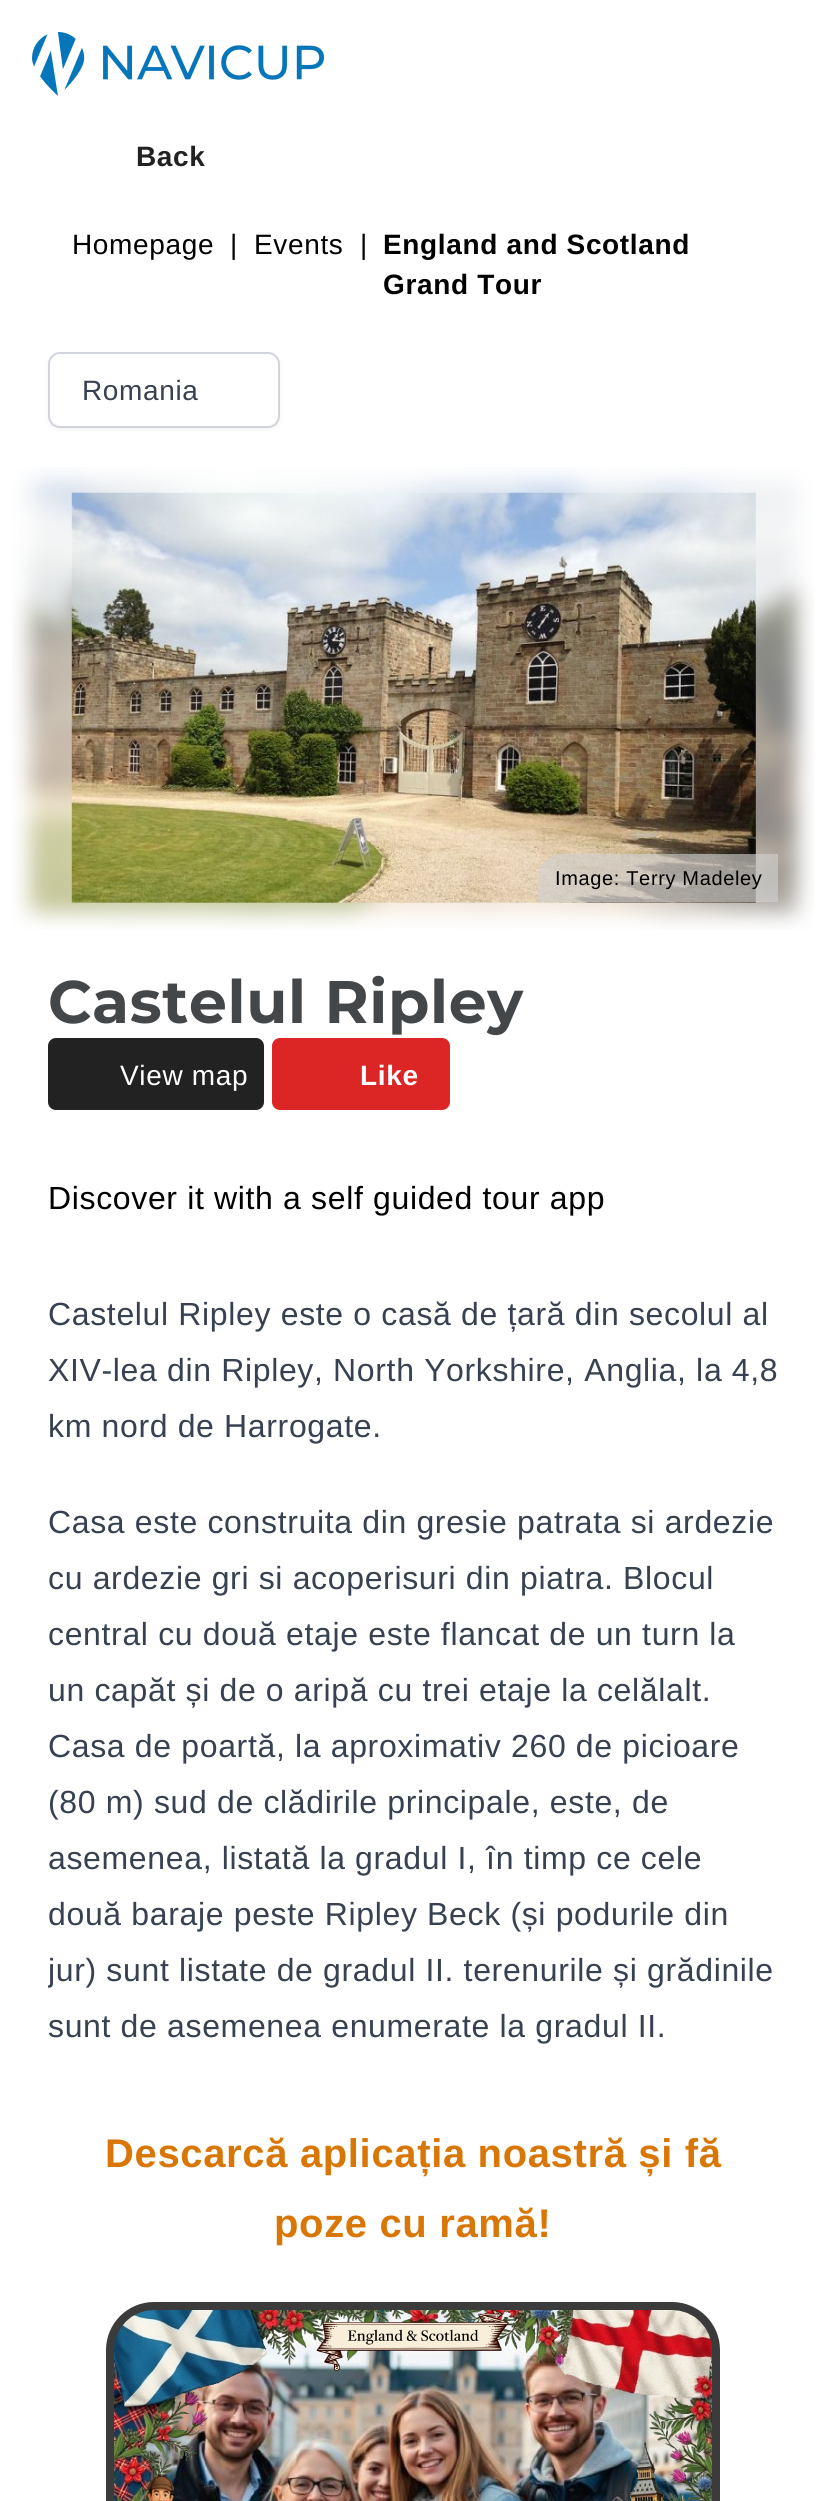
#include <cairo/cairo.h>
#include <math.h>
#include <stddef.h>

typedef struct { double x, y; const char *s; } line_t;
static cairo_t *cr;

static void rgb(unsigned color)
{
	cairo_set_source_rgb(cr, (color >> 16) / 255.0, (color >> 8 & 255) / 255.0, (color & 255) / 255.0);
}

static void tracked(double x, double y, const char *s, double letter, double word)
{
	cairo_move_to(cr, x, y);
	while (*s) {
		char ch[5] = {0};
		int n = 0;
		do ch[n++] = *s++; while ((*s & 0xC0) == 0x80);
		cairo_show_text(cr, ch);
		cairo_rel_move_to(cr, letter + word * (*ch == ' '), 0);
	}
}

static void rrect(double x, double y, double w, double h, double r)
{
	cairo_new_sub_path(cr);
	cairo_arc(cr, x + w - r, y + h - r, r, 0, M_PI / 2);
	cairo_arc(cr, x + r, y + h - r, r, M_PI / 2, M_PI);
	cairo_arc(cr, x + r, y + r, r, M_PI, 1.5 * M_PI);
	cairo_arc(cr, x + w - r, y + r, r, 1.5 * M_PI, 2 * M_PI);
	cairo_close_path(cr);
}

static void soft_shadow(double x, double y, double w, double h, double r, double blur, double alpha)
{
	cairo_push_group_with_content(cr, CAIRO_CONTENT_ALPHA);
	cairo_set_operator(cr, CAIRO_OPERATOR_SOURCE);
	for (int i = 15; i >= -15 && fmin(w, h) + blur * i / 3 > 0; i -= 2) {
		double e = blur * i / 6;
		cairo_set_source_rgba(cr, 0, 0, 0, alpha * erfc((i - 1) / 8.5) / 2);
		rrect(x - e, y - e, w + 2 * e, h + 2 * e, fmax(0, fmin(r + e + blur * .6, fmin(w, h) / 2 + e)));
		cairo_fill(cr);
	}
	cairo_pattern_t *soft = cairo_pop_group(cr);
	cairo_mask(cr, soft);
	cairo_pattern_destroy(soft);
}

static void image(const char *path, double x, double y, double w, double h)
{
	cairo_surface_t *image = cairo_image_surface_create_from_png(path);
	cairo_save(cr);
	cairo_set_source_surface(cr, image, x, y);
	cairo_rectangle(cr, x, y, w, h);
	cairo_fill(cr);
	cairo_restore(cr);
	cairo_surface_destroy(image);
}

int main(void) {
	cairo_surface_t *surface = cairo_image_surface_create(CAIRO_FORMAT_RGB24, 825, 2501);
	cr = cairo_create(surface);
	cairo_font_options_t *options = cairo_font_options_create();
	cairo_font_options_set_hint_metrics(options, CAIRO_HINT_METRICS_OFF);
	cairo_font_options_set_hint_style(options, CAIRO_HINT_STYLE_NONE);
	cairo_set_font_options(cr, options);
	cairo_set_miter_limit(cr, 4);
	rgb(0xffffff);
	cairo_paint(cr);
	image("img/1.png", 32, 32, 292, 64);
	rgb(0x000000);
	soft_shadow(48, 354, 232, 76, 12, 2, 0.05);
	rgb(0xffffff);
	rrect(49, 353, 230, 74, 11);
	cairo_fill_preserve(cr);
	rgb(0xd1d5db);
	cairo_stroke(cr);
	image("img/2.png", 12, 467, 802, 463);
	image("img/3.png", 71, 492, 685, 411);
	cairo_set_source_rgba(cr, 0.82, 0.82, 0.82, 0.61);
	cairo_new_path(cr);
	cairo_move_to(cr, 562, 854);
	cairo_line_to(cr, 778, 854);
	cairo_line_to(cr, 778, 902);
	cairo_line_to(cr, 538, 902);
	cairo_line_to(cr, 538, 878);
	cairo_curve_to(cr, 538, 864.5, 548.5, 854, 562, 854);
	cairo_close_path(cr);
	cairo_fill(cr);
	rgb(0x222222);
	rrect(48, 1038, 216, 72, 8);
	cairo_fill(cr);
	rgb(0xdc2626);
	rrect(272, 1038, 178, 72, 8);
	cairo_fill(cr);
	rgb(0x3b3b3b);
	rrect(106, 2302, 614, 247, 48);
	cairo_fill(cr);
	image("img/4.png", 114, 2310, 598, 191);
	cairo_select_font_face(cr, "Liberation Sans", CAIRO_FONT_SLANT_NORMAL, CAIRO_FONT_WEIGHT_BOLD);
	cairo_set_font_size(cr, 28);
	rgb(0x222222);
	tracked(136, 166, "Back", 0.65, 0);
	cairo_select_font_face(cr, "Liberation Sans", CAIRO_FONT_SLANT_NORMAL, CAIRO_FONT_WEIGHT_NORMAL);
	rgb(0x000000);
	{
		static const line_t items[] = {
			{72, 254, "Homepage"},
			{230, 254, "|"},
			{254, 254, "Events"},
			{360, 254, "|"},
		};
		for (size_t i = 0; i < sizeof items / sizeof *items; i++) {
			tracked(items[i].x, items[i].y, items[i].s, 0.65, 0);
		}
	}
	cairo_select_font_face(cr, "Liberation Sans", CAIRO_FONT_SLANT_NORMAL, CAIRO_FONT_WEIGHT_BOLD);
	tracked(383, 254, "England and Scotland", 0.65, 0);
	tracked(383, 294, "Grand Tour", 0.65, 0);
	cairo_select_font_face(cr, "Liberation Sans", CAIRO_FONT_SLANT_NORMAL, CAIRO_FONT_WEIGHT_NORMAL);
	rgb(0x374151);
	tracked(82, 400, "Romania", 0.65, 0);
	cairo_set_font_size(cr, 20);
	rgb(0x000000);
	tracked(555, 885, "Image: Terry Madeley", 0.65, 0);
	cairo_select_font_face(cr, "Montserrat", CAIRO_FONT_SLANT_NORMAL, CAIRO_FONT_WEIGHT_BOLD);
	cairo_set_font_size(cr, 60);
	rgb(0x44474a);
	tracked(48, 1023, "Castelul Ripley", 0.65, 0);
	cairo_select_font_face(cr, "Liberation Sans", CAIRO_FONT_SLANT_NORMAL, CAIRO_FONT_WEIGHT_NORMAL);
	cairo_set_font_size(cr, 28);
	rgb(0xffffff);
	tracked(120, 1085, "View map", 0.65, 0);
	cairo_select_font_face(cr, "Liberation Sans", CAIRO_FONT_SLANT_NORMAL, CAIRO_FONT_WEIGHT_BOLD);
	tracked(360, 1085, "Like", 0.65, 0);
	cairo_select_font_face(cr, "Liberation Sans", CAIRO_FONT_SLANT_NORMAL, CAIRO_FONT_WEIGHT_NORMAL);
	cairo_set_font_size(cr, 32);
	rgb(0x000000);
	tracked(48, 1209, "Discover it with a self guided tour app", 0.65, 0);
	rgb(0x374151);
	{
		static const line_t items[] = {
			{48, 1325, "Castelul Ripley este o casă de țară din secolul al"},
			{48, 1381, "XIV-lea din Ripley, North Yorkshire, Anglia, la 4,8"},
			{48, 1437, "km nord de Harrogate."},
			{48, 1533, "Casa este construita din gresie patrata si ardezie"},
			{48, 1589, "cu ardezie gri si acoperisuri din piatra. Blocul"},
			{48, 1645, "central cu două etaje este flancat de un turn la"},
			{48, 1701, "un capăt și de o aripă cu trei etaje la celălalt."},
			{48, 1757, "Casa de poartă, la aproximativ 260 de picioare"},
			{48, 1813, "(80 m) sud de clădirile principale, este, de"},
			{48, 1869, "asemenea, listată la gradul I, în timp ce cele"},
			{48, 1925, "două baraje peste Ripley Beck (și podurile din"},
		};
		for (size_t i = 0; i < sizeof items / sizeof *items; i++) {
			tracked(items[i].x, items[i].y, items[i].s, 0.65, 0);
		}
	}
	cairo_save(cr);
	cairo_rectangle(cr, 48, 1286, 730, 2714);
	cairo_clip(cr);
	tracked(48, 1981, "jur) sunt listate de gradul II. terenurile și grădinile", 0.65, 0);
	cairo_restore(cr);
	tracked(48, 2037, "sunt de asemenea enumerate la gradul II.", 0.65, 0);
	cairo_select_font_face(cr, "Liberation Sans", CAIRO_FONT_SLANT_NORMAL, CAIRO_FONT_WEIGHT_BOLD);
	cairo_set_font_size(cr, 40);
	rgb(0xd97706);
	tracked(105, 2167, "Descarcă aplicația noastră și fă", 0.65, 0);
	tracked(274, 2237, "poze cu ramă!", 0.65, 0);
	cairo_surface_write_to_png(surface, "page.png");
	cairo_font_options_destroy(options);
	cairo_destroy(cr);
	cairo_surface_destroy(surface);
	return 0;
}
